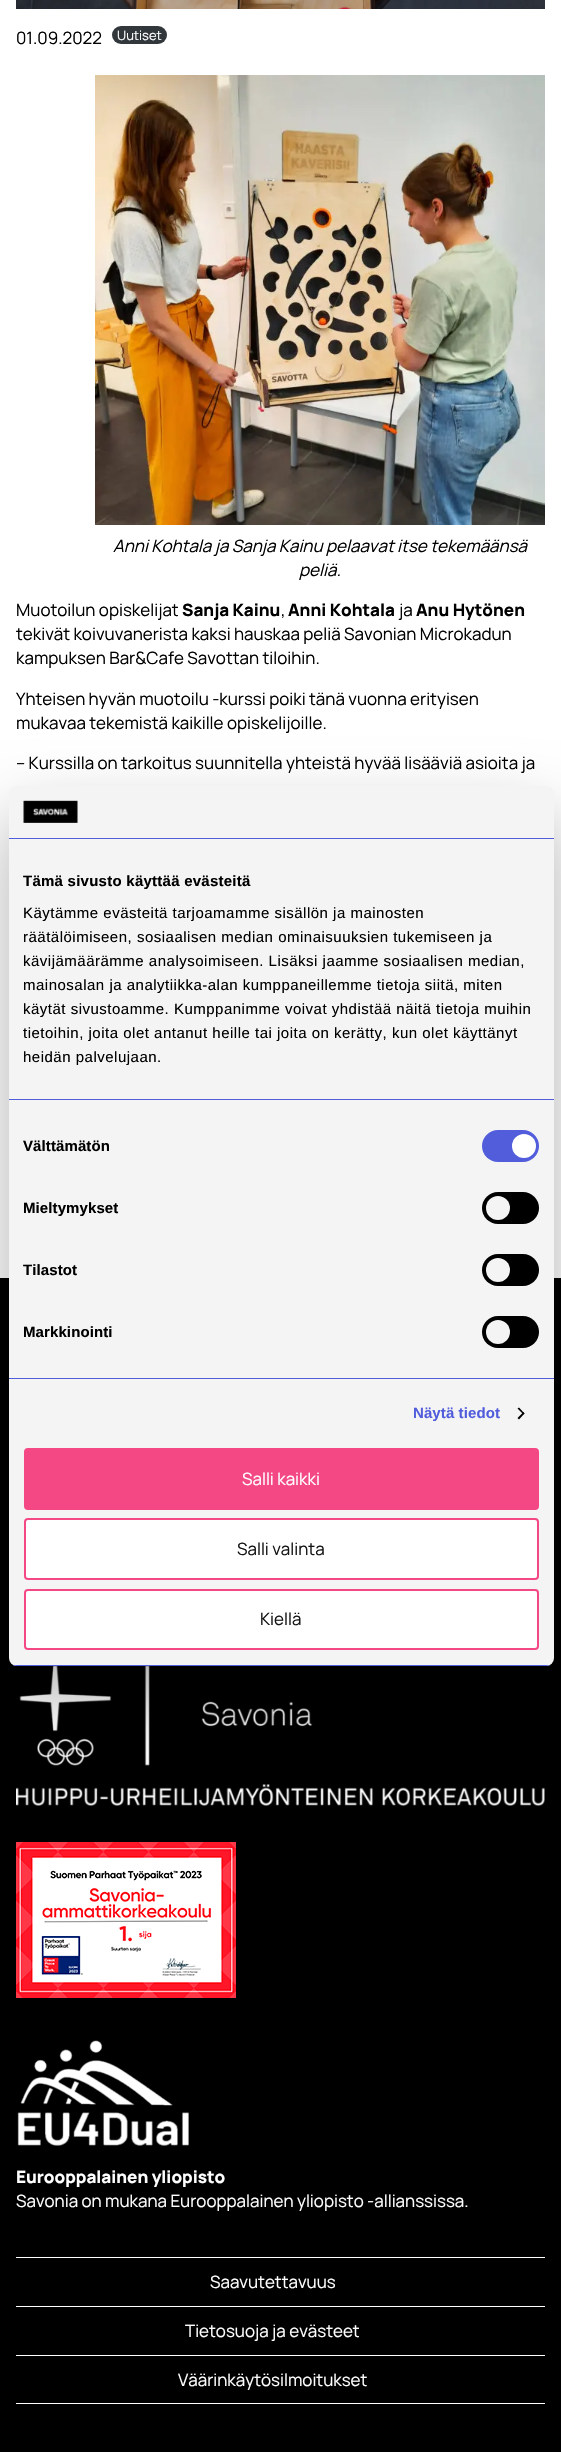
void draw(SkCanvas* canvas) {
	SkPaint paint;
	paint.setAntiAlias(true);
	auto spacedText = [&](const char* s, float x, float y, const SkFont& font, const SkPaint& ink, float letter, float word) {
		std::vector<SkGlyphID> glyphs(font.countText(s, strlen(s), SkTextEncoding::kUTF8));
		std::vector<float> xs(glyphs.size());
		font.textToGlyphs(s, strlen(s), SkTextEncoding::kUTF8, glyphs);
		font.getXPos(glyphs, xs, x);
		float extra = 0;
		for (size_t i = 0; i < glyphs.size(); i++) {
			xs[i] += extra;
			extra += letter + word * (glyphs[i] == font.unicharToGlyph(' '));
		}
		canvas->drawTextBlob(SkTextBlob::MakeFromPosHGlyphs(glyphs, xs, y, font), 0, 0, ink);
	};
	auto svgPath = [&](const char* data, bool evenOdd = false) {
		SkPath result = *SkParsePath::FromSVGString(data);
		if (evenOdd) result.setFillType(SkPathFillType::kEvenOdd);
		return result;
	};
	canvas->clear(0xffffffff);
	canvas->drawImageRect(SkImages::DeferredFromEncodedData(SkData::MakeFromFileName("img1.png")), SkRect::MakeXYWH(16, 0, 529, 9), SkSamplingOptions());
	SkFont f1(fontMgr->matchFamilyStyle("Manrope", SkFontStyle::Normal()), 17);
	f1.setSubpixel(true);
	paint.setColor(0xff000000);
	canvas->drawString("01.09.2022", 16, 44, f1, paint);
	paint.setColor(0xff32373c);
	canvas->drawRoundRect(SkRect::MakeXYWH(112, 26, 55, 18), 9, 9, paint);
	SkFont f2(fontMgr->matchFamilyStyle("Manrope", SkFontStyle::Normal()), 13);
	f2.setSubpixel(true);
	paint.setColor(0xffffffff);
	canvas->drawString("Uutiset", 117, 40, f2, paint);
	canvas->drawImageRect(SkImages::DeferredFromEncodedData(SkData::MakeFromFileName("img2.png")), SkRect::MakeXYWH(95, 75, 450, 450), SkSamplingOptions());
	SkFont f3(fontMgr->matchFamilyStyle("Manrope", SkFontStyle::Italic()), 17);
	f3.setSubpixel(true);
	paint.setColor(0xff000000);
	canvas->drawString("Anni Kohtala ja Sanja Kainu pelaavat itse tekemäänsä", 113, 552, f3, paint);
	canvas->drawString("peliä.", 299, 576, f3, paint);
	canvas->drawString("Muotoilun opiskelijat", 16, 616, f1, paint);
	SkFont f4(fontMgr->matchFamilyStyle("Manrope", SkFontStyle(800, SkFontStyle::kNormal_Width, SkFontStyle::kUpright_Slant)), 17);
	f4.setSubpixel(true);
	canvas->drawString("Sanja Kainu", 182, 616, f4, paint);
	canvas->drawString(",", 281, 616, f1, paint);
	canvas->drawString("Anni Kohtala", 288, 616, f4, paint);
	canvas->drawString("ja", 399, 616, f1, paint);
	canvas->drawString("Anu Hytönen", 416, 616, f4, paint);
	canvas->drawString("tekivät koivuvanerista kaksi hauskaa peliä Savonian Microkadun", 16, 640, f1, paint);
	canvas->drawString("kampuksen Bar&Cafe Savottan tiloihin.", 16, 664, f1, paint);
	canvas->drawString("Yhteisen hyvän muotoilu -kurssi poiki tänä vuonna erityisen", 16, 705, f1, paint);
	canvas->drawString("mukavaa tekemistä kaikille opiskelijoille.", 16, 729, f1, paint);
	canvas->drawString("– Kurssilla on tarkoitus suunnitella yhteistä hyvää lisääviä asioita ja", 16, 769, f1, paint);
	canvas->drawRect(SkRect::MakeXYWH(0, 1278, 561, 1174), paint);
	canvas->drawImageRect(SkImages::DeferredFromEncodedData(SkData::MakeFromFileName("img4.png")), SkRect::MakeXYWH(16, 1666, 529, 140), SkSamplingOptions());
	paint.setColor(0x4d000000);
	paint.setMaskFilter(SkMaskFilter::MakeBlur(kNormal_SkBlurStyle, 34));
	canvas->drawRoundRect(SkRect::MakeXYWH(9, 818, 545, 880), 8, 8, paint);
	paint.setMaskFilter(nullptr);
	paint.setColor(0xfff4f4f4);
	canvas->drawRoundRect(SkRect::MakeXYWH(9, 786, 545, 880), 8, 8, paint);
	paint.setColor(0xff525ddc);
	canvas->drawRect(SkRect::MakeXYWH(9, 838, 545, 1), paint);
	canvas->drawImageRect(SkImages::DeferredFromEncodedData(SkData::MakeFromFileName("img3.png")), SkRect::MakeXYWH(23, 800, 55, 23), SkSamplingOptions());
	canvas->drawRect(SkRect::MakeXYWH(9, 1099, 545, 1), paint);
	SkFont f5(fontMgr->matchFamilyStyle("Liberation Sans", SkFontStyle::Bold()), 15);
	f5.setSubpixel(true);
	paint.setColor(0xff000000);
	spacedText("Tämä sivusto käyttää evästeitä", 23, 886, f5, paint, 0.25, 0);
	SkFont f6(fontMgr->matchFamilyStyle("Liberation Sans", SkFontStyle::Normal()), 15);
	f6.setSubpixel(true);
	spacedText("Käytämme evästeitä tarjoamamme sisällön ja mainosten", 23, 918, f6, paint, 0.5, 0);
	spacedText("räätälöimiseen, sosiaalisen median ominaisuuksien tukemiseen ja", 23, 942, f6, paint, 0.5, 0);
	spacedText("kävijämäärämme analysoimiseen. Lisäksi jaamme sosiaalisen median,", 23, 966, f6, paint, 0.5, 0);
	spacedText("mainosalan ja analytiikka-alan kumppaneillemme tietoja siitä, miten", 23, 990, f6, paint, 0.5, 0);
	spacedText("käytät sivustoamme. Kumppanimme voivat yhdistää näitä tietoja muihin", 23, 1014, f6, paint, 0.5, 0);
	spacedText("tietoihin, joita olet antanut heille tai joita on kerätty, kun olet käyttänyt", 23, 1038, f6, paint, 0.5, 0);
	spacedText("heidän palvelujaan.", 23, 1062, f6, paint, 0.5, 0);
	paint.setColor(0xff525ddc);
	canvas->drawRect(SkRect::MakeXYWH(9, 1378, 545, 1), paint);
	paint.setColor(0xff000000);
	spacedText("Välttämätön", 23, 1151, f5, paint, 0.1, 0);
	paint.setColor(0xff525ddc);
	canvas->drawRoundRect(SkRect::MakeXYWH(482, 1130, 57, 32), 16, 16, paint);
	paint.setColor(0xffffffff);
	canvas->drawCircle(524, 1146, 12, paint);
	paint.setColor(0xff000000);
	spacedText("Mieltymykset", 23, 1213, f5, paint, 0.1, 0);
	canvas->drawRoundRect(SkRect::MakeXYWH(482, 1192, 57, 32), 16, 16, paint);
	paint.setColor(0xfff4f4f4);
	canvas->drawCircle(498, 1208, 12, paint);
	paint.setColor(0xff000000);
	spacedText("Tilastot", 23, 1275, f5, paint, 0.1, 0);
	canvas->drawRoundRect(SkRect::MakeXYWH(482, 1254, 57, 32), 16, 16, paint);
	paint.setColor(0xfff4f4f4);
	canvas->drawCircle(498, 1270, 12, paint);
	paint.setColor(0xff000000);
	spacedText("Markkinointi", 23, 1337, f5, paint, 0.1, 0);
	canvas->drawRoundRect(SkRect::MakeXYWH(482, 1316, 57, 32), 16, 16, paint);
	paint.setColor(0xfff4f4f4);
	canvas->drawCircle(498, 1332, 12, paint);
	paint.setColor(0xff525ddc);
	spacedText("Näytä tiedot", 413, 1418, f5, paint, 0.1, 0);
	paint.setColor(0xff000000);
	canvas->drawPath(svgPath("M519 1407.5L524.5 1413.5L523.5 1414.5L517.5 1408.5Z"), paint);
	canvas->drawPath(svgPath("M523.5 1412L524.5 1413.5L519 1419.5L517.5 1418Z"), paint);
	canvas->save();
	canvas->clipPath(svgPath("M17 786H546C550.5 786 554 789.5 554 794V1658C554 1662.5 550.5 1666 546 1666H17C12.5 1666 9 1662.5 9 1658V794C9 789.5 12.5 786 17 786Z"), true);
	paint.setColor(0xff525ddc);
	canvas->drawRect(SkRect::MakeXYWH(9, 1665, 545, 1), paint);
	canvas->restore();
	paint.setColor(0xfff44884);
	canvas->drawRoundRect(SkRect::MakeXYWH(25, 1449, 513, 60), 3, 3, paint);
	paint.setStroke(true);
	paint.setStrokeWidth(2);
	canvas->drawRoundRect(SkRect::MakeXYWH(25, 1449, 513, 60), 3, 3, paint);
	paint.setStroke(false);
	paint.setColor(0xffffffff);
	canvas->drawString("Salli kaikki", 242, 1485, f1, paint);
	canvas->drawRoundRect(SkRect::MakeXYWH(25, 1519, 513, 60), 3, 3, paint);
	paint.setStroke(true);
	paint.setColor(0xfff44884);
	canvas->drawRoundRect(SkRect::MakeXYWH(25, 1519, 513, 60), 3, 3, paint);
	paint.setStroke(false);
	paint.setColor(0xff141414);
	canvas->drawString("Salli valinta", 237, 1555, f1, paint);
	paint.setColor(0xffffffff);
	canvas->drawRoundRect(SkRect::MakeXYWH(25, 1590, 513, 59), 3, 3, paint);
	paint.setStroke(true);
	paint.setColor(0xfff44884);
	canvas->drawRoundRect(SkRect::MakeXYWH(25, 1590, 513, 59), 3, 3, paint);
	paint.setStroke(false);
	paint.setColor(0xff141414);
	canvas->drawString("Kiellä", 260, 1625, f1, paint);
	canvas->drawImageRect(SkImages::DeferredFromEncodedData(SkData::MakeFromFileName("img5.png")), SkRect::MakeXYWH(16, 1842, 220, 156), SkSamplingOptions());
	canvas->drawImageRect(SkImages::DeferredFromEncodedData(SkData::MakeFromFileName("img6.png")), SkRect::MakeXYWH(17, 2040, 172, 106), SkSamplingOptions());
	paint.setColor(0xffffffff);
	canvas->drawString("Eurooppalainen yliopisto", 16, 2183, f4, paint);
	canvas->drawString("Savonia on mukana Eurooppalainen yliopisto -allianssissa.", 16, 2207, f1, paint);
	canvas->drawRect(SkRect::MakeXYWH(16, 2257, 529, 1), paint);
	canvas->drawRect(SkRect::MakeXYWH(16, 2403, 529, 1), paint);
	canvas->drawRect(SkRect::MakeXYWH(16, 2306, 529, 1), paint);
	canvas->drawString("Saavutettavuus", 210, 2288, f1, paint);
	canvas->drawRect(SkRect::MakeXYWH(16, 2355, 529, 1), paint);
	canvas->drawString("Tietosuoja ja evästeet", 185, 2337, f1, paint);
	canvas->drawString("Väärinkäytösilmoitukset", 178, 2386, f1, paint);
}
